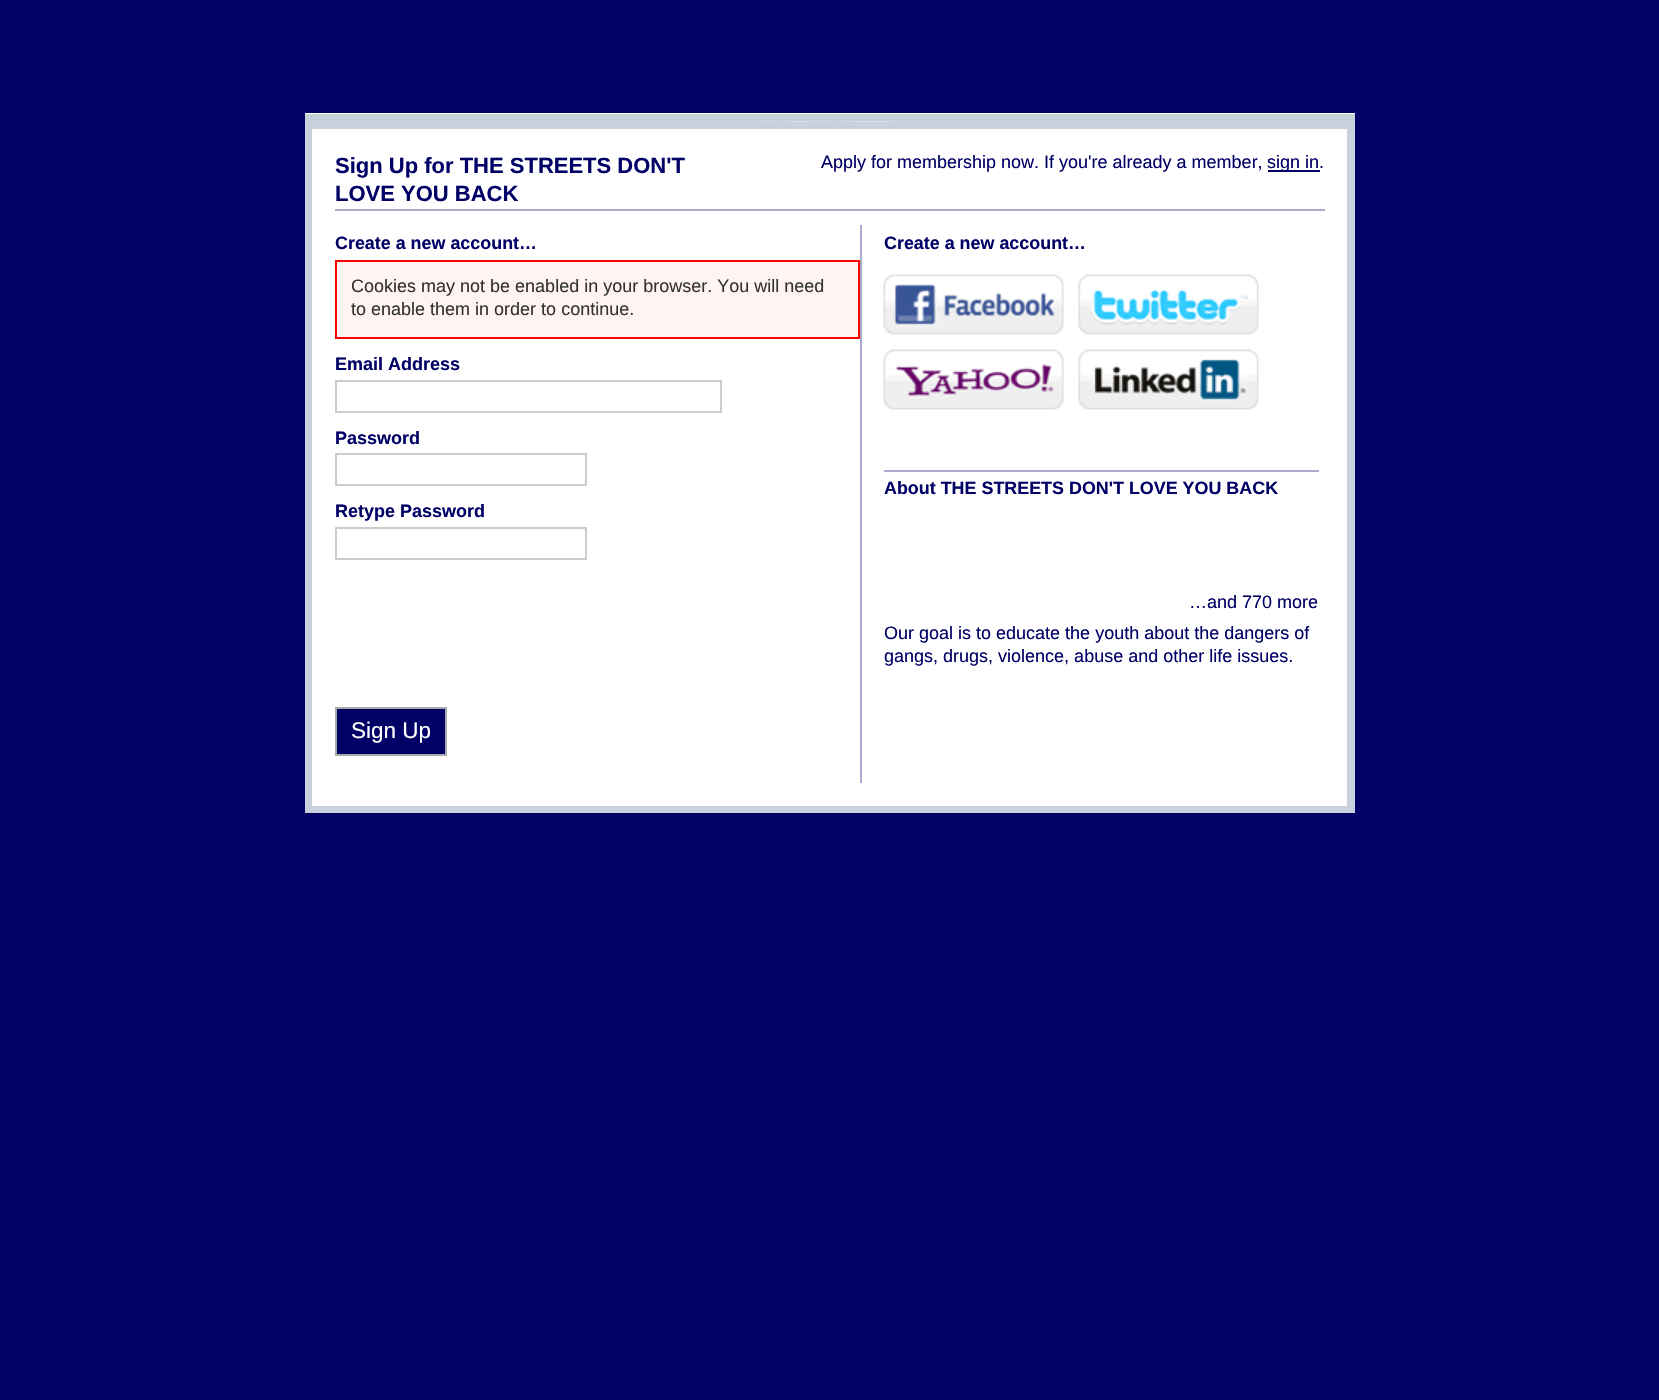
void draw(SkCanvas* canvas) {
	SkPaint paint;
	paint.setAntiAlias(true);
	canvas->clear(0xff000066);
	paint.setColor(0xffffffff);
	canvas->drawRect(SkRect::MakeXYWH(305, 113, 1050, 1), paint);
	paint.setColor(0xffc4d2db);
	canvas->drawRect(SkRect::MakeXYWH(305, 114, 1050, 8), paint);
	canvas->drawImageRect(SkImages::DeferredFromEncodedData(SkData::MakeFromFileName("img1.png")), SkRect::MakeXYWH(754, 121, 151, 1), SkSamplingOptions());
	paint.setStroke(true);
	paint.setStrokeWidth(8);
	paint.setColor(0xffc9d1de);
	canvas->drawRect(SkRect::MakeXYWH(309, 126, 1042, 683), paint);
	paint.setStroke(false);
	paint.setColor(0xffffffff);
	canvas->drawRect(SkRect::MakeXYWH(312, 129, 1035, 677), paint);
	paint.setColor(0xffaaaacc);
	canvas->drawRect(SkRect::MakeXYWH(335, 209, 990, 2), paint);
	SkFont f1(fontMgr->matchFamilyStyle("Liberation Sans", SkFontStyle::Bold()), 22);
	f1.setSubpixel(true);
	paint.setColor(0xff000066);
	canvas->drawString("Sign Up for THE STREETS DON'T", 335, 173, f1, paint);
	canvas->drawString("LOVE YOU BACK", 335, 201, f1, paint);
	SkFont f2(fontMgr->matchFamilyStyle("Liberation Sans", SkFontStyle::Normal()), 18);
	f2.setSubpixel(true);
	canvas->drawString("Apply for membership now. If you're already a member,", 821, 168, f2, paint);
	canvas->drawRect(SkRect::MakeXYWH(1268, 170, 52, 2), paint);
	canvas->drawString("sign in.", 1267, 168, f2, paint);
	paint.setColor(0xffaaaacc);
	canvas->drawRect(SkRect::MakeXYWH(860, 225, 2, 558), paint);
	SkFont f3(fontMgr->matchFamilyStyle("Liberation Sans", SkFontStyle::Bold()), 17.9);
	f3.setSubpixel(true);
	paint.setColor(0xff000066);
	canvas->drawString("Create a new account…", 335, 249, f3, paint);
	paint.setColor(0xfffff4f2);
	canvas->drawRect(SkRect::MakeXYWH(336, 261, 523, 77), paint);
	paint.setStroke(true);
	paint.setStrokeWidth(2);
	paint.setColor(0xffff0000);
	canvas->drawRect(SkRect::MakeXYWH(336, 261, 523, 77), paint);
	paint.setStroke(false);
	paint.setColor(0xff333333);
	canvas->drawString("Cookies may not be enabled in your browser. You will need", 351, 292, f2, paint);
	canvas->drawString("to enable them in order to continue.", 351, 315, f2, paint);
	SkFont f4(fontMgr->matchFamilyStyle("Liberation Sans", SkFontStyle::Bold()), 18);
	f4.setSubpixel(true);
	paint.setColor(0xff000066);
	canvas->drawString("Email Address", 335, 370, f4, paint);
	paint.setStroke(true);
	paint.setColor(0xffcccccc);
	canvas->drawRect(SkRect::MakeXYWH(336, 381, 385, 31), paint);
	paint.setStroke(false);
	paint.setColor(0xff000066);
	canvas->drawString("Password", 335, 444, f4, paint);
	paint.setStroke(true);
	paint.setColor(0xffcccccc);
	canvas->drawRect(SkRect::MakeXYWH(336, 454, 250, 31), paint);
	paint.setStroke(false);
	paint.setColor(0xff000066);
	canvas->drawString("Retype Password", 335, 517, f4, paint);
	paint.setStroke(true);
	paint.setColor(0xffcccccc);
	canvas->drawRect(SkRect::MakeXYWH(336, 528, 250, 31), paint);
	paint.setStroke(false);
	paint.setColor(0xff000066);
	canvas->drawRect(SkRect::MakeXYWH(336, 708, 110, 47), paint);
	paint.setStroke(true);
	paint.setColor(0xffaaaaaa);
	canvas->drawRect(SkRect::MakeXYWH(336, 708, 110, 47), paint);
	SkFont f5(fontMgr->matchFamilyStyle("Liberation Sans", SkFontStyle::Normal()), 22.5);
	f5.setSubpixel(true);
	paint.setStroke(false);
	paint.setColor(0xffffffff);
	canvas->drawString("Sign Up", 351, 738, f5, paint);
	paint.setColor(0xff000066);
	canvas->drawString("Create a new account…", 884, 249, f3, paint);
	paint.setColor(0xffaaaacc);
	canvas->drawRect(SkRect::MakeXYWH(884, 470, 435, 2), paint);
	canvas->drawImageRect(SkImages::DeferredFromEncodedData(SkData::MakeFromFileName("img2.png")), SkRect::MakeXYWH(883, 274, 181, 61), SkSamplingOptions());
	canvas->drawImageRect(SkImages::DeferredFromEncodedData(SkData::MakeFromFileName("img3.png")), SkRect::MakeXYWH(1078, 274, 181, 61), SkSamplingOptions());
	canvas->drawImageRect(SkImages::DeferredFromEncodedData(SkData::MakeFromFileName("img4.png")), SkRect::MakeXYWH(883, 349, 181, 61), SkSamplingOptions());
	canvas->drawImageRect(SkImages::DeferredFromEncodedData(SkData::MakeFromFileName("img5.png")), SkRect::MakeXYWH(1078, 349, 181, 61), SkSamplingOptions());
	paint.setColor(0xff000066);
	canvas->drawString("About THE STREETS DON'T LOVE YOU BACK", 884, 494, f3, paint);
	canvas->drawString("…and 770 more", 1189, 608, f2, paint);
	canvas->drawString("Our goal is to educate the youth about the dangers of", 884, 639, f2, paint);
	canvas->drawString("gangs, drugs, violence, abuse and other life issues.", 884, 662, f2, paint);
}
